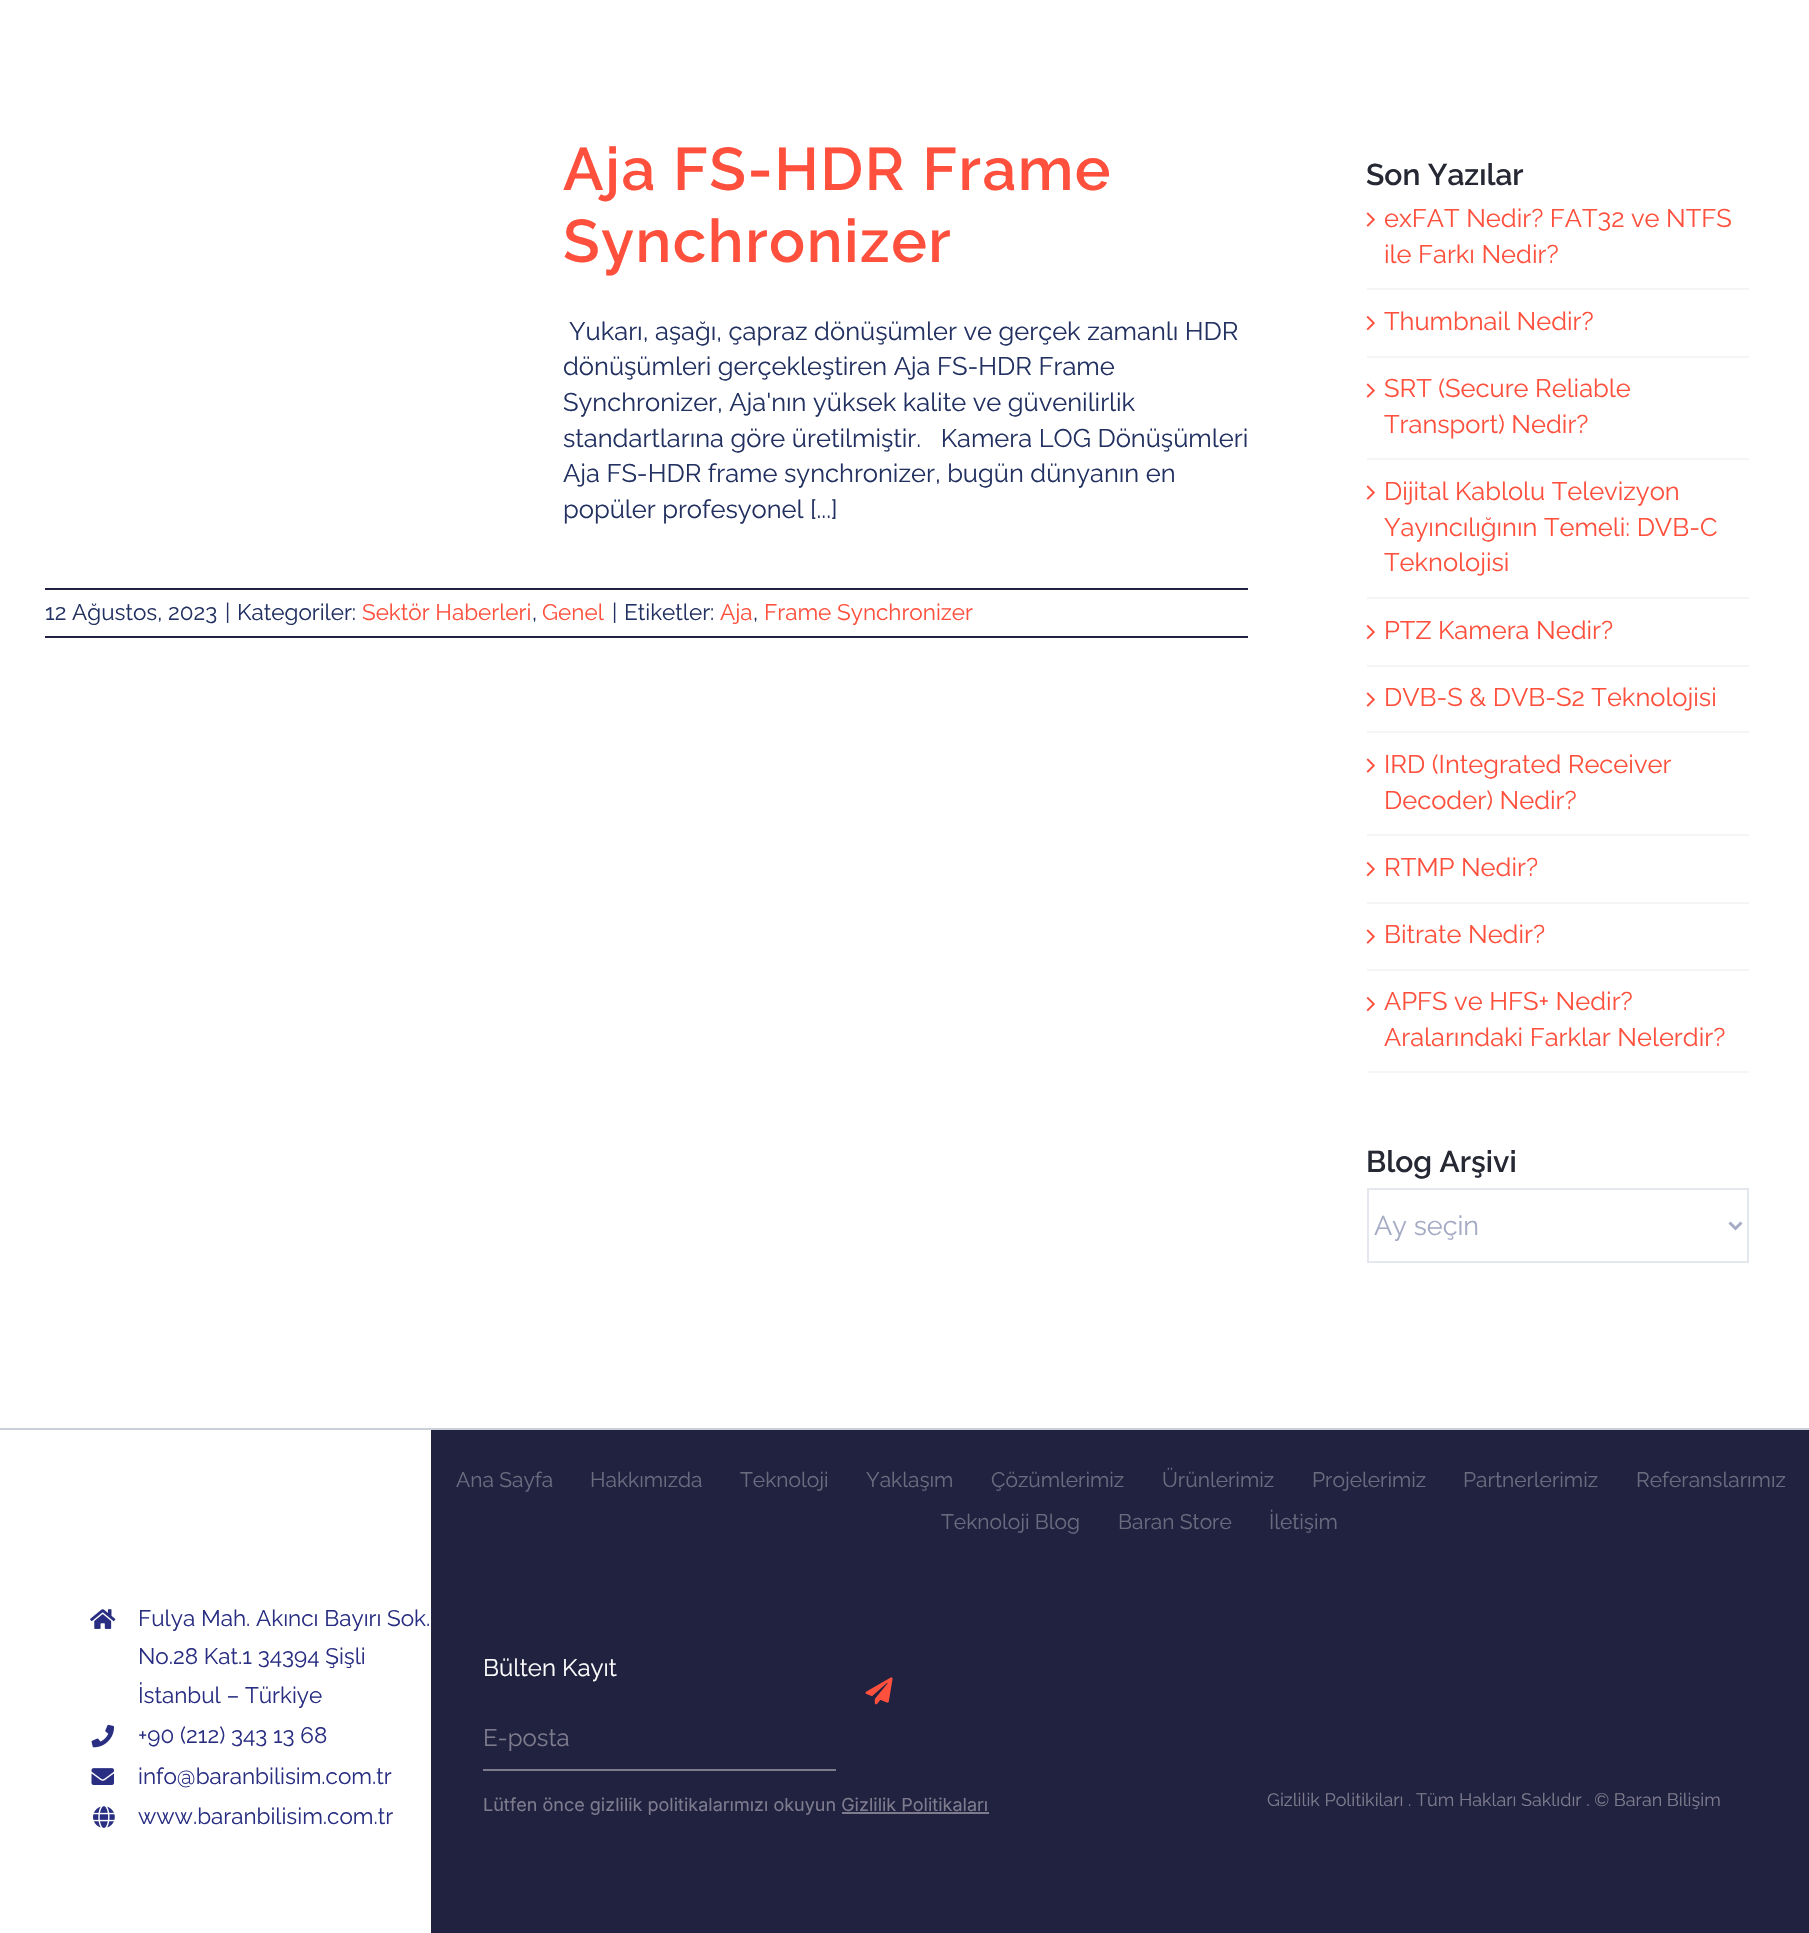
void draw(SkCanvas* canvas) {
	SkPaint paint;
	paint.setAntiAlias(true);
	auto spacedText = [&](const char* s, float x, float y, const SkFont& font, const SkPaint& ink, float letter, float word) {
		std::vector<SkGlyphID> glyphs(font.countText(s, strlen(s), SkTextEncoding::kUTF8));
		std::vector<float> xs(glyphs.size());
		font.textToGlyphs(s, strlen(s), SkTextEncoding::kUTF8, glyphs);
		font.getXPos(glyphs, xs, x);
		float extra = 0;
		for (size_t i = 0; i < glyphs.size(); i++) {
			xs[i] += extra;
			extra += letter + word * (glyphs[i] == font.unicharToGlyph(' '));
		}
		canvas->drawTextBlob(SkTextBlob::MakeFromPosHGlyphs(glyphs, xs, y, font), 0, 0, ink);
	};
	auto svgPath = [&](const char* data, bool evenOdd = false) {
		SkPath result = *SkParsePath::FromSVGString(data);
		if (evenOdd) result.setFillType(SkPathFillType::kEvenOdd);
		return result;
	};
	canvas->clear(0xffffffff);
	SkFont f1(fontMgr->matchFamilyStyle("Raleway", SkFontStyle(600, SkFontStyle::kNormal_Width, SkFontStyle::kUpright_Slant)), 60);
	f1.setSubpixel(true);
	paint.setColor(0xfffe503d);
	spacedText("Aja FS-HDR Frame", 563, 190, f1, paint, 1.5, 0);
	spacedText("Synchronizer", 563, 262, f1, paint, 1.5, 0);
	SkFont f2(fontMgr->matchFamilyStyle("Raleway", SkFontStyle::Normal()), 25.5);
	f2.setSubpixel(true);
	paint.setColor(0xff223161);
	canvas->drawString("Yukarı, aşağı, çapraz dönüşümler ve gerçek zamanlı HDR", 569, 340, f2, paint);
	canvas->drawString("dönüşümleri gerçekleştiren Aja FS-HDR Frame", 563, 375, f2, paint);
	canvas->drawString("Synchronizer, Aja'nın yüksek kalite ve güvenilirlik", 563, 411, f2, paint);
	canvas->drawString("standartlarına göre üretilmiştir.   Kamera LOG Dönüşümleri", 563, 447, f2, paint);
	canvas->drawString("Aja FS-HDR frame synchronizer, bugün dünyanın en", 563, 482, f2, paint);
	canvas->drawString("popüler profesyonel [...]", 563, 518, f2, paint);
	paint.setColor(0xff212240);
	canvas->drawRect(SkRect::MakeXYWH(45, 588, 1203, 2), paint);
	canvas->drawRect(SkRect::MakeXYWH(45, 636, 1203, 2), paint);
	SkFont f3(fontMgr->matchFamilyStyle("Raleway", SkFontStyle::Normal()), 22.5);
	f3.setSubpixel(true);
	paint.setColor(0xff223161);
	canvas->drawString("12 Ağustos, 2023", 45, 620, f3, paint);
	canvas->drawString("|", 225, 620, f3, paint);
	canvas->drawString("Kategoriler:", 237, 620, f3, paint);
	paint.setColor(0xfffe503d);
	canvas->drawString("Sektör Haberleri", 362, 620, f3, paint);
	paint.setColor(0xff223161);
	canvas->drawString(",", 532, 620, f3, paint);
	paint.setColor(0xfffe503d);
	canvas->drawString("Genel", 542, 620, f3, paint);
	paint.setColor(0xff223161);
	canvas->drawString("|", 612, 620, f3, paint);
	canvas->drawString("Etiketler:", 624, 620, f3, paint);
	paint.setColor(0xfffe503d);
	canvas->drawString("Aja", 720, 620, f3, paint);
	paint.setColor(0xff223161);
	canvas->drawString(",", 753, 620, f3, paint);
	paint.setColor(0xfffe503d);
	canvas->drawString("Frame Synchronizer", 764, 620, f3, paint);
	SkFont f4(fontMgr->matchFamilyStyle("Raleway", SkFontStyle(600, SkFontStyle::kNormal_Width, SkFontStyle::kUpright_Slant)), 30);
	f4.setSubpixel(true);
	paint.setColor(0xff262833);
	canvas->drawString("Son Yazılar", 1366, 185, f4, paint);
	paint.setColor(0xfff3f5f7);
	canvas->drawRect(SkRect::MakeXYWH(1367, 288, 382, 2), paint);
	canvas->drawImageRect(SkImages::DeferredFromEncodedData(SkData::MakeFromFileName("img1.png")), SkRect::MakeXYWH(1366, 212, 9, 15), SkSamplingOptions());
	paint.setColor(0xfffe503d);
	canvas->drawString("exFAT Nedir? FAT32 ve NTFS", 1384, 227, f2, paint);
	canvas->drawString("ile Farkı Nedir?", 1384, 263, f2, paint);
	paint.setColor(0xfff3f5f7);
	canvas->drawRect(SkRect::MakeXYWH(1367, 356, 382, 2), paint);
	canvas->drawImageRect(SkImages::DeferredFromEncodedData(SkData::MakeFromFileName("img2.png")), SkRect::MakeXYWH(1366, 316, 9, 15), SkSamplingOptions());
	paint.setColor(0xfffe503d);
	canvas->drawString("Thumbnail Nedir?", 1384, 330, f2, paint);
	paint.setColor(0xfff3f5f7);
	canvas->drawRect(SkRect::MakeXYWH(1367, 458, 382, 2), paint);
	canvas->drawImageRect(SkImages::DeferredFromEncodedData(SkData::MakeFromFileName("img1.png")), SkRect::MakeXYWH(1366, 383, 9, 15), SkSamplingOptions());
	paint.setColor(0xfffe503d);
	canvas->drawString("SRT (Secure Reliable", 1384, 397, f2, paint);
	canvas->drawString("Transport) Nedir?", 1384, 433, f2, paint);
	paint.setColor(0xfff3f5f7);
	canvas->drawRect(SkRect::MakeXYWH(1367, 597, 382, 2), paint);
	canvas->drawImageRect(SkImages::DeferredFromEncodedData(SkData::MakeFromFileName("img1.png")), SkRect::MakeXYWH(1366, 485, 9, 15), SkSamplingOptions());
	paint.setColor(0xfffe503d);
	canvas->drawString("Dijital Kablolu Televizyon", 1384, 500, f2, paint);
	canvas->drawString("Yayıncılığının Temeli: DVB-C", 1384, 536, f2, paint);
	canvas->drawString("Teknolojisi", 1384, 571, f2, paint);
	paint.setColor(0xfff3f5f7);
	canvas->drawRect(SkRect::MakeXYWH(1367, 665, 382, 2), paint);
	canvas->drawImageRect(SkImages::DeferredFromEncodedData(SkData::MakeFromFileName("img2.png")), SkRect::MakeXYWH(1366, 625, 9, 15), SkSamplingOptions());
	paint.setColor(0xfffe503d);
	canvas->drawString("PTZ Kamera Nedir?", 1384, 639, f2, paint);
	paint.setColor(0xfff3f5f7);
	canvas->drawRect(SkRect::MakeXYWH(1367, 731, 382, 2), paint);
	canvas->drawImageRect(SkImages::DeferredFromEncodedData(SkData::MakeFromFileName("img1.png")), SkRect::MakeXYWH(1366, 692, 9, 15), SkSamplingOptions());
	paint.setColor(0xfffe503d);
	canvas->drawString("DVB-S & DVB-S2 Teknolojisi", 1384, 706, f2, paint);
	paint.setColor(0xfff3f5f7);
	canvas->drawRect(SkRect::MakeXYWH(1367, 834, 382, 2), paint);
	canvas->drawImageRect(SkImages::DeferredFromEncodedData(SkData::MakeFromFileName("img1.png")), SkRect::MakeXYWH(1366, 758, 9, 15), SkSamplingOptions());
	paint.setColor(0xfffe503d);
	canvas->drawString("IRD (Integrated Receiver", 1384, 773, f2, paint);
	canvas->drawString("Decoder) Nedir?", 1384, 809, f2, paint);
	paint.setColor(0xfff3f5f7);
	canvas->drawRect(SkRect::MakeXYWH(1367, 902, 382, 2), paint);
	canvas->drawImageRect(SkImages::DeferredFromEncodedData(SkData::MakeFromFileName("img2.png")), SkRect::MakeXYWH(1366, 862, 9, 15), SkSamplingOptions());
	paint.setColor(0xfffe503d);
	canvas->drawString("RTMP Nedir?", 1384, 876, f2, paint);
	paint.setColor(0xfff3f5f7);
	canvas->drawRect(SkRect::MakeXYWH(1367, 969, 382, 2), paint);
	canvas->drawImageRect(SkImages::DeferredFromEncodedData(SkData::MakeFromFileName("img1.png")), SkRect::MakeXYWH(1366, 929, 9, 15), SkSamplingOptions());
	paint.setColor(0xfffe503d);
	canvas->drawString("Bitrate Nedir?", 1384, 943, f2, paint);
	paint.setColor(0xfff3f5f7);
	canvas->drawRect(SkRect::MakeXYWH(1367, 1071, 382, 2), paint);
	canvas->drawImageRect(SkImages::DeferredFromEncodedData(SkData::MakeFromFileName("img2.png")), SkRect::MakeXYWH(1366, 997, 9, 15), SkSamplingOptions());
	paint.setColor(0xfffe503d);
	canvas->drawString("APFS ve HFS+ Nedir?", 1384, 1010, f2, paint);
	canvas->drawString("Aralarındaki Farklar Nelerdir?", 1384, 1046, f2, paint);
	paint.setColor(0xff262833);
	canvas->drawString("Blog Arşivi", 1366, 1172, f4, paint);
	paint.setStroke(true);
	paint.setStrokeWidth(2);
	paint.setColor(0xffe4e7ee);
	canvas->drawRect(SkRect::MakeXYWH(1368, 1189, 380, 73), paint);
	paint.setStrokeWidth(3);
	paint.setColor(0xffa5abc5);
	canvas->drawPath(svgPath("M1729.5 1222.5L1735.5 1228.5L1741.5 1222.5"), paint);
	SkFont f5(fontMgr->matchFamilyStyle("Raleway", SkFontStyle::Normal()), 27);
	f5.setSubpixel(true);
	paint.setStroke(false);
	canvas->drawString("Ay seçin", 1374, 1235, f5, paint);
	paint.setColor(0xffc9d0d8);
	canvas->drawRect(SkRect::MakeXYWH(0, 1428, 1809, 2), paint);
	canvas->drawImageRect(SkImages::DeferredFromEncodedData(SkData::MakeFromFileName("img3.png")), SkRect::MakeXYWH(90, 1609, 26, 20), SkSamplingOptions());
	paint.setColor(0xff292e82);
	canvas->drawString("Fulya Mah. Akıncı Bayırı Sok.", 138, 1626, f3, paint);
	canvas->drawString("No.28 Kat.1 34394 Şişli", 138, 1664, f3, paint);
	canvas->drawString("İstanbul – Türkiye", 138, 1703, f3, paint);
	canvas->drawImageRect(SkImages::DeferredFromEncodedData(SkData::MakeFromFileName("img4.png")), SkRect::MakeXYWH(91, 1724, 23, 24), SkSamplingOptions());
	canvas->drawString("+90 (212) 343 13 68", 138, 1743, f3, paint);
	canvas->drawImageRect(SkImages::DeferredFromEncodedData(SkData::MakeFromFileName("img5.png")), SkRect::MakeXYWH(91, 1768, 23, 17), SkSamplingOptions());
	canvas->drawString("info@baranbilisim.com.tr", 138, 1784, f3, paint);
	canvas->drawImageRect(SkImages::DeferredFromEncodedData(SkData::MakeFromFileName("img6.png")), SkRect::MakeXYWH(93, 1806, 22, 22), SkSamplingOptions());
	canvas->drawString("www.baranbilisim.com.tr", 138, 1824, f3, paint);
	paint.setColor(0xff212240);
	canvas->drawRect(SkRect::MakeXYWH(431, 1430, 1378, 503), paint);
	SkFont f6(fontMgr->matchFamilyStyle("Raleway", SkFontStyle::Normal()), 21);
	f6.setSubpixel(true);
	paint.setColor(0xff6a6b7f);
	canvas->drawString("Ana Sayfa", 456, 1487, f6, paint);
	canvas->drawString("Hakkımızda", 590, 1487, f6, paint);
	canvas->drawString("Teknoloji", 740, 1487, f6, paint);
	canvas->drawString("Yaklaşım", 866, 1487, f6, paint);
	canvas->drawString("Çözümlerimiz", 991, 1487, f6, paint);
	canvas->drawString("Ürünlerimiz", 1162, 1487, f6, paint);
	canvas->drawString("Projelerimiz", 1312, 1487, f6, paint);
	canvas->drawString("Partnerlerimiz", 1463, 1487, f6, paint);
	canvas->drawString("Referanslarımız", 1636, 1487, f6, paint);
	canvas->drawString("Teknoloji Blog", 941, 1529, f6, paint);
	canvas->drawString("Baran Store", 1118, 1529, f6, paint);
	canvas->drawString("İletişim", 1269, 1529, f6, paint);
	SkFont f7(fontMgr->matchFamilyStyle("Raleway", SkFontStyle::Normal()), 24);
	f7.setSubpixel(true);
	paint.setColor(0xffffffff);
	canvas->drawString("Bülten Kayıt", 483, 1676, f7, paint);
	paint.setColor(0xff7d7b8d);
	canvas->drawRect(SkRect::MakeXYWH(483, 1769, 353, 2), paint);
	canvas->drawString("E-posta", 483, 1746, f7, paint);
	canvas->drawImageRect(SkImages::DeferredFromEncodedData(SkData::MakeFromFileName("img7.png")), SkRect::MakeXYWH(865, 1677, 28, 28), SkSamplingOptions());
	SkFont f8(fontMgr->matchFamilyStyle("Inter", SkFontStyle::Normal()), 18);
	f8.setSubpixel(true);
	canvas->drawString("Lütfen önce gizlilik politikalarımızı okuyun Gizlilik Politikaları", 483, 1811, f8, paint);
	canvas->drawRect(SkRect::MakeXYWH(842, 1812, 147, 2), paint);
	SkFont f9(fontMgr->matchFamilyStyle("Raleway", SkFontStyle::Normal()), 18);
	f9.setSubpixel(true);
	canvas->drawString("Gizlilik Politikiları . Tüm Hakları Saklıdır . © Baran Bilişim", 1267, 1806, f9, paint);
}
